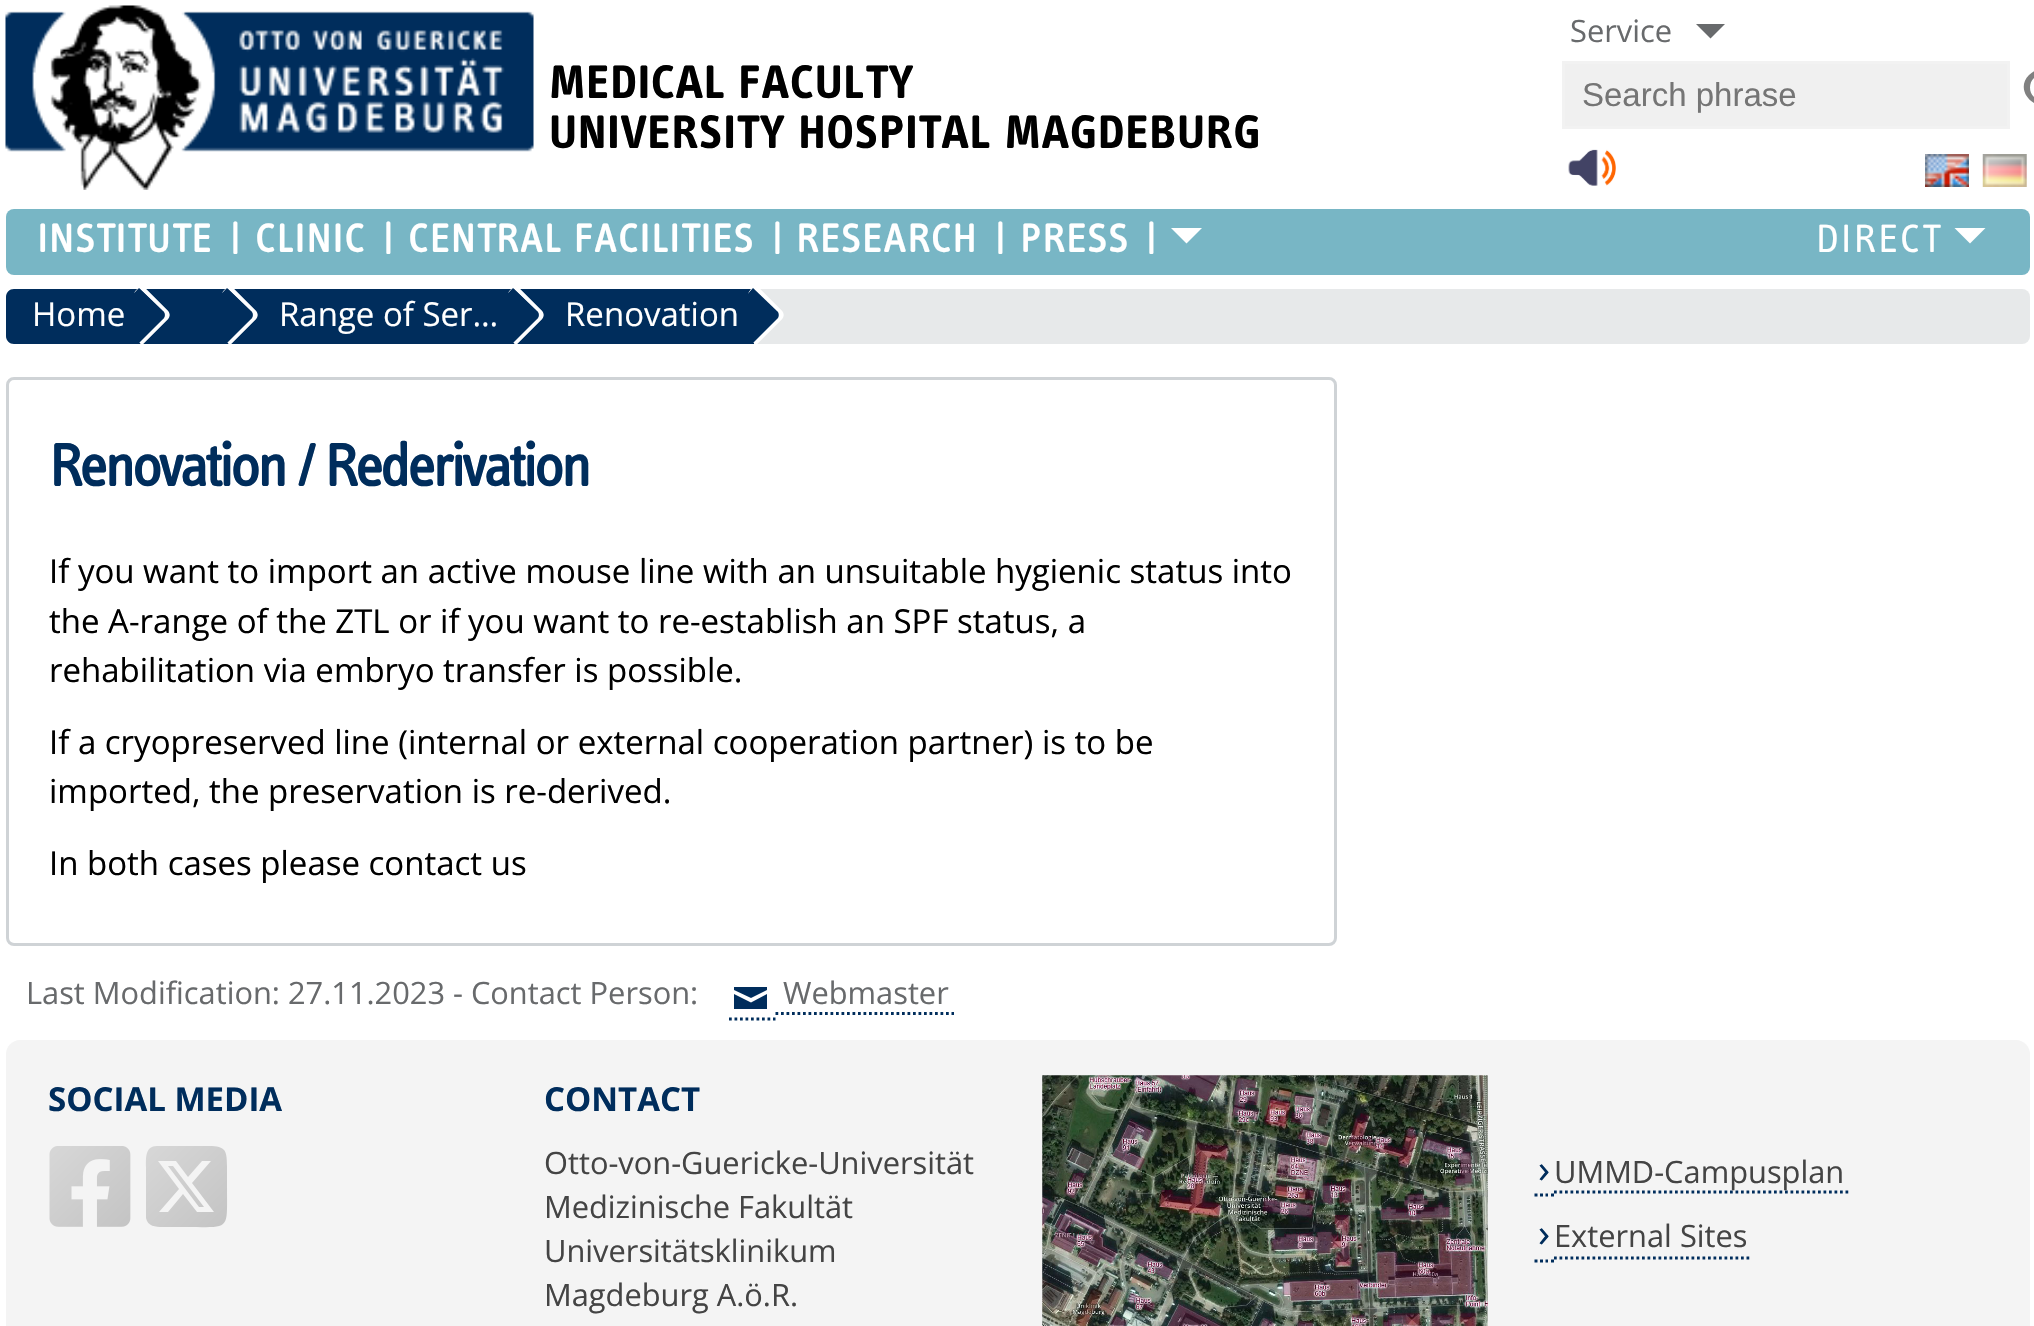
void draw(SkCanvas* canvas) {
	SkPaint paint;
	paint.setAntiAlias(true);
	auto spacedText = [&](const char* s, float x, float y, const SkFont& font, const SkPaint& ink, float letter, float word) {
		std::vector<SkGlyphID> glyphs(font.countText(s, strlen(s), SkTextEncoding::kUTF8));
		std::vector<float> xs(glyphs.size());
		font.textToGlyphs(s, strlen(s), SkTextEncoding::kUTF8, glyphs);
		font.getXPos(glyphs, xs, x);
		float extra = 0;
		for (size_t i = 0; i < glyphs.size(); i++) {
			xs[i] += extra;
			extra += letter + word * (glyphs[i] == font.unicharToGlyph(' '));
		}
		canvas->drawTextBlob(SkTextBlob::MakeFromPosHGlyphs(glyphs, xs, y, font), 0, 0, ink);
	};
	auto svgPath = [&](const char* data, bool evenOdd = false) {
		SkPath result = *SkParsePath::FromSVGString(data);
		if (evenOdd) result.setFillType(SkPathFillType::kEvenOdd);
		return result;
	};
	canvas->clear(0xffffffff);
	canvas->drawImageRect(SkImages::DeferredFromEncodedData(SkData::MakeFromFileName("img1.png")), SkRect::MakeXYWH(5, 5, 529, 185), SkSamplingOptions());
	SkFont f1(fontMgr->matchFamilyStyle("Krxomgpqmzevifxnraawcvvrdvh", SkFontStyle::Bold()), 48.4);
	f1.setSubpixel(true);
	paint.setColor(0xff000000);
	spacedText("MEDICAL FACULTY", 549, 98, f1, paint, 0.9, 0);
	spacedText("UNIVERSITY HOSPITAL MAGDEBURG", 549, 148, f1, paint, 0.9, 0);
	SkFont f2(fontMgr->matchFamilyStyle("Open Sans", SkFontStyle::Normal()), 30.8);
	f2.setSubpixel(true);
	paint.setColor(0xff686a6c);
	canvas->drawString("Service", 1570, 42, f2, paint);
	canvas->drawPath(svgPath("M1696 24L1710.5 38.5L1725 24Z"), paint);
	paint.setColor(0xfff0f0f0);
	canvas->drawRect(SkRect::MakeXYWH(1563.5, 62.5, 445, 65), paint);
	paint.setStroke(true);
	paint.setStrokeWidth(3);
	paint.setColor(0xfff2f2f2);
	canvas->drawRect(SkRect::MakeXYWH(1563.5, 62.5, 445, 65), paint);
	SkFont f3(fontMgr->matchFamilyStyle("Liberation Sans", SkFontStyle::Normal()), 33);
	f3.setSubpixel(true);
	paint.setStroke(false);
	paint.setColor(0xff757575);
	canvas->drawString("Search phrase", 1582, 106, f3, paint);
	paint.setColor(0xff808080);
	canvas->drawPath(svgPath("M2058 100H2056L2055 99C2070 82 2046 58 2029 75C2013 91 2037 115 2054 101V104L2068 117L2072 113ZM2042 100C2026 100 2026 75 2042 75C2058 75 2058 100 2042 100Z"), paint);
	canvas->drawImageRect(SkImages::DeferredFromEncodedData(SkData::MakeFromFileName("img2.png")), SkRect::MakeXYWH(1568, 149, 48, 37), SkSamplingOptions());
	canvas->drawImageRect(SkImages::DeferredFromEncodedData(SkData::MakeFromFileName("img3.png")), SkRect::MakeXYWH(1925, 154, 44, 33), SkSamplingOptions());
	canvas->drawImageRect(SkImages::DeferredFromEncodedData(SkData::MakeFromFileName("img4.png")), SkRect::MakeXYWH(1982, 154, 45, 33), SkSamplingOptions());
	paint.setColor(0xff78b6c5);
	canvas->drawRoundRect(SkRect::MakeXYWH(6, 209, 2024, 66), 8, 8, paint);
	SkFont f4(fontMgr->matchFamilyStyle("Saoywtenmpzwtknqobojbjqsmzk", SkFontStyle::Bold()), 40.75);
	f4.setSubpixel(true);
	paint.setColor(0xffffffff);
	spacedText("INSTITUTE", 37, 252, f4, paint, 1.5, 0);
	spacedText("|", 230, 252, f4, paint, 1.5, 0);
	spacedText("CLINIC", 255, 252, f4, paint, 1.5, 0);
	spacedText("|", 383, 252, f4, paint, 1.5, 0);
	spacedText("CENTRAL FACILITIES", 408, 252, f4, paint, 1.5, 0);
	spacedText("|", 772, 252, f4, paint, 1.5, 0);
	spacedText("RESEARCH", 796, 252, f4, paint, 1.5, 0);
	spacedText("|", 995, 252, f4, paint, 1.5, 0);
	spacedText("PRESS", 1020, 252, f4, paint, 1.5, 0);
	spacedText("|", 1146, 252, f4, paint, 2.25, 0);
	canvas->drawPath(svgPath("M1171 228L1186.5 243.5L1202 228Z"), paint);
	SkFont f5(fontMgr->matchFamilyStyle("Saoywtenmpzwtknqobojbjqsmzk", SkFontStyle::Normal()), 40.75);
	f5.setSubpixel(true);
	spacedText("DIRECT", 1816, 252, f5, paint, 2.25, 0);
	canvas->drawPath(svgPath("M1954.5 228L1970 243.5L1985.5 228Z"), paint);
	paint.setColor(0xffe7e9ea);
	canvas->drawRoundRect(SkRect::MakeXYWH(6, 289, 2024, 55), 8, 8, paint);
	paint.setColor(0xff002d5c);
	canvas->drawRect(SkRect::MakeXYWH(140, 289, 614, 55), paint);
	paint.setColor(0xe6ffffff);
	canvas->drawPath(svgPath("M230 285C227 287 224 290 222 293L227 288L252 312C253 314 253 316 252 318L227 342L230 345L256 319C258 317 258 313 256 311Z"), paint);
	canvas->drawPath(svgPath("M230 285C227 287 224 290 222 293L227 288L252 312C253 314 253 316 252 318L227 342L230 345L256 319C258 317 258 313 256 311Z"), paint);
	paint.setColor(0xff002d5c);
	canvas->drawPath(svgPath("M227 288L252 312C253 314 253 316 252 318L227 343C212 327 212 303 227 288Z"), paint);
	canvas->drawPath(svgPath("M14 289H140V344H14C9.5 344 6 340.5 6 336V297C6 292.5 9.5 289 14 289Z"), paint);
	SkFont f6(fontMgr->matchFamilyStyle("Open Sans", SkFontStyle::Normal()), 33);
	f6.setSubpixel(true);
	paint.setColor(0xffffffff);
	canvas->drawString("Home", 32, 326, f6, paint);
	paint.setColor(0xe6ffffff);
	canvas->drawPath(svgPath("M142 285C139 287 136 290 134 293L139 288L164 312C165 314 165 316 164 318L139 342L142 345L168 319C170 317 170 313 168 311Z"), paint);
	canvas->drawPath(svgPath("M142 285C139 287 136 290 134 293L139 288L164 312C165 314 165 316 164 318L139 342L142 345L168 319C170 317 170 313 168 311Z"), paint);
	paint.setColor(0xff002d5c);
	canvas->drawPath(svgPath("M139 288L164 312C165 314 165 316 164 318L139 343C124 327 124 303 139 288Z"), paint);
	paint.setColor(0xffffffff);
	canvas->drawString("Range of Ser…", 279, 326, f6, paint);
	paint.setColor(0xe6ffffff);
	canvas->drawPath(svgPath("M516 285C513 287 510 290 508 293L513 288L538 312C539 314 539 316 538 318L513 342L516 345L542 319C544 317 544 313 542 311Z"), paint);
	canvas->drawPath(svgPath("M516 285C513 287 510 290 508 293L513 288L538 312C539 314 539 316 538 318L513 342L516 345L542 319C544 317 544 313 542 311Z"), paint);
	paint.setColor(0xff002d5c);
	canvas->drawPath(svgPath("M513 288L538 312C539 314 539 316 538 318L513 343C498 327 498 303 513 288Z"), paint);
	paint.setColor(0xffffffff);
	canvas->drawString("Renovation", 565, 326, f6, paint);
	paint.setColor(0xe6ffffff);
	canvas->drawPath(svgPath("M756 285C752 287 750 290 748 294L753 288L778 312C779 314 779 316 778 318L753 342L756 345L782 319C784 317 784 313 782 311Z"), paint);
	canvas->drawPath(svgPath("M756 285C752 287 750 290 748 294L753 288L778 312C779 314 779 316 778 318L753 342L756 345L782 319C784 317 784 313 782 311Z"), paint);
	paint.setColor(0xff002d5c);
	canvas->drawPath(svgPath("M753 288L778 312C779 314 779 316 778 318L753 343C738 327 738 303 753 288Z"), paint);
	paint.setStroke(true);
	paint.setColor(0xffcfd3d6);
	canvas->drawRoundRect(SkRect::MakeXYWH(7.5, 378.5, 1328, 566), 6.5, 6.5, paint);
	SkFont f7(fontMgr->matchFamilyStyle("Saoywtenmpzwtknqobojbjqsmzk", SkFontStyle::Bold()), 61.5);
	f7.setSubpixel(true);
	paint.setStroke(false);
	paint.setColor(0xff002d5c);
	spacedText("Renovation / Rederivation", 49, 486, f7, paint, -3.4, 0);
	paint.setColor(0xff000000);
	canvas->drawString("If you want to import an active mouse line with an unsuitable hygienic status into", 49, 583, f6, paint);
	canvas->drawString("the A-range of the ZTL or if you want to re-establish an SPF status, a", 49, 633, f6, paint);
	canvas->drawString("rehabilitation via embryo transfer is possible.", 49, 682, f6, paint);
	canvas->drawString("If a cryopreserved line (internal or external cooperation partner) is to be", 49, 754, f6, paint);
	canvas->drawString("imported, the preservation is re-derived.", 49, 803, f6, paint);
	canvas->drawString("In both cases please contact us", 49, 875, f6, paint);
	paint.setColor(0xff686a6c);
	canvas->drawString("Last Modification: 27.11.2023 - Contact Person:", 26, 1004, f2, paint);
	paint.setStroke(true);
	paint.setStrokeWidth(2.8);
	paint.setColor(0xff002d5c);
	paint.setPathEffect(SkDashPathEffect::Make({{2.75f, 2.75f}}, 0));
	canvas->drawPath(svgPath("M729 1019H775.5"), paint);
	paint.setPathEffect(nullptr);
	paint.setPathEffect(SkDashPathEffect::Make({{2.75f, 2.75f}}, 0));
	canvas->drawPath(svgPath("M775.5 1013.5H954"), paint);
	paint.setPathEffect(nullptr);
	paint.setStroke(false);
	canvas->drawPath(svgPath("M734 1009V994L751 1002.5L767 994V1009ZM734 990V987H767V990L751 998Z"), paint);
	paint.setColor(0xff686a6c);
	canvas->drawString("Webmaster", 783, 1004, f2, paint);
	paint.setColor(0xfff4f4f4);
	canvas->drawPath(svgPath("M20 1040H2016C2023.5 1040 2030 1046.5 2030 1054V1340H6V1054C6 1046.5 12.5 1040 20 1040Z"), paint);
	SkFont f8(fontMgr->matchFamilyStyle("Open Sans", SkFontStyle::Bold()), 33);
	f8.setSubpixel(true);
	paint.setColor(0xff002d5c);
	canvas->drawString("SOCIAL MEDIA", 48, 1111, f8, paint);
	canvas->drawImageRect(SkImages::DeferredFromEncodedData(SkData::MakeFromFileName("img5.png")), SkRect::MakeXYWH(49, 1146, 82, 81), SkSamplingOptions());
	{
		const SkColor colors[] = {0xffd8d8d8, 0xffc3c3c3};
		const float stops[] = {0, 1};
		const SkPoint ends[] = {{143, 1144}, {229, 1231}};
		paint.setShader(SkGradientShader::MakeLinear(ends, colors, stops, 2, SkTileMode::kClamp));
		paint.setAlpha(255);
	}
	canvas->drawPath(svgPath("M157 1146C145 1146 146 1158 146 1167V1218C148 1228 159 1227 167 1227H186C231 1227 227 1232 227 1186V1167C227 1148 225 1146 205 1146ZM211 1161L192 1183L214 1212H197L183 1194L168 1212H159L179 1189L158 1161H176L188 1177L202 1161ZM204 1207L173 1166H168L199 1207Z"), paint);
	paint.setShader(nullptr);
	paint.setColor(0xff002d5c);
	canvas->drawString("CONTACT", 544, 1111, f8, paint);
	paint.setColor(0xff444444);
	canvas->drawString("Otto-von-Guericke-Universität", 544, 1174, f2, paint);
	canvas->drawString("Medizinische Fakultät", 544, 1218, f2, paint);
	canvas->drawString("Universitätsklinikum", 544, 1262, f2, paint);
	canvas->drawString("Magdeburg A.ö.R.", 544, 1306, f2, paint);
	canvas->drawImageRect(SkImages::DeferredFromEncodedData(SkData::MakeFromFileName("img6.png")), SkRect::MakeXYWH(1042, 1075, 446, 251), SkSamplingOptions());
	SkFont f9(fontMgr->matchFamilyStyle("Open Sans", SkFontStyle::Normal()), 40);
	f9.setSubpixel(true);
	paint.setColor(0xff002d5c);
	canvas->drawString("›", 1538, 1183, f9, paint);
	paint.setStroke(true);
	paint.setPathEffect(SkDashPathEffect::Make({{2.75f, 2.75f}}, 0));
	canvas->drawPath(svgPath("M1554 1192H1851"), paint);
	paint.setPathEffect(nullptr);
	paint.setStroke(false);
	paint.setColor(0xff444444);
	canvas->drawString("UMMD-Campusplan", 1554, 1183, f2, paint);
	paint.setStroke(true);
	paint.setColor(0xff002d5c);
	canvas->drawPath(svgPath("M1534.5 1195H1537.5M1540 1195H1543M1545.5 1195H1548M1551 1195H1554"), paint);
	paint.setStroke(false);
	canvas->drawString("›", 1538, 1247, f9, paint);
	paint.setStroke(true);
	canvas->drawPath(svgPath("M1534.5 1261H1537.5M1540 1261H1543M1545.5 1261H1548M1551 1261H1554"), paint);
	paint.setStroke(false);
	paint.setColor(0xff444444);
	canvas->drawString("External Sites", 1554, 1247, f2, paint);
	paint.setStroke(true);
	paint.setColor(0xff002d5c);
	paint.setPathEffect(SkDashPathEffect::Make({{2.75f, 2.75f}}, 0));
	canvas->drawPath(svgPath("M1554 1258H1752"), paint);
	paint.setPathEffect(nullptr);
}
